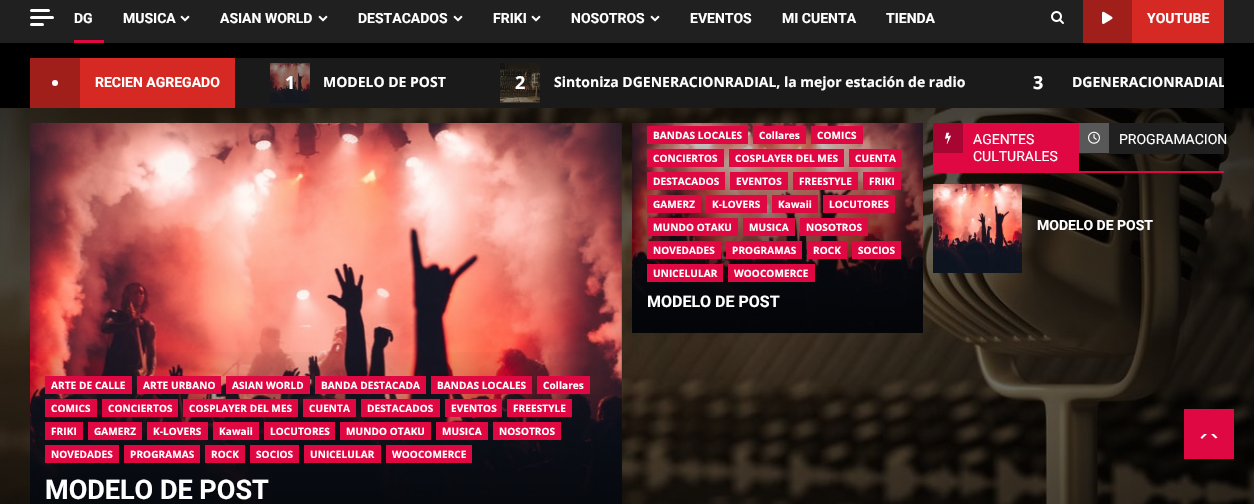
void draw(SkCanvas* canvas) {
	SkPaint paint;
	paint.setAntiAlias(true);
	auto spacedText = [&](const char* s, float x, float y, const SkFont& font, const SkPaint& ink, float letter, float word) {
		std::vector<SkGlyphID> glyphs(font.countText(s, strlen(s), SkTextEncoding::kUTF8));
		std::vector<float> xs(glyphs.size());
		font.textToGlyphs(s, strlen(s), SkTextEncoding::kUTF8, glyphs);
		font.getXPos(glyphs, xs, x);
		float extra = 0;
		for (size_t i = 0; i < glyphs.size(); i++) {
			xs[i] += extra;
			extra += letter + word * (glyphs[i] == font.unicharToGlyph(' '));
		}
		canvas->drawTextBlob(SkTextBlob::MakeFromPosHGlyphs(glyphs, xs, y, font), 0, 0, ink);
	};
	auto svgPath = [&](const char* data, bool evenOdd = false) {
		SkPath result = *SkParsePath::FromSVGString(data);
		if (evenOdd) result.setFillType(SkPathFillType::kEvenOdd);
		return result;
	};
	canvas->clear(0xff000000);
	paint.setColor(0xff202020);
	canvas->drawRect(SkRect::MakeXYWH(0, 0, 1254, 43), paint);
	paint.setColor(0xffffffff);
	canvas->drawRoundRect(SkRect::MakeXYWH(30, 9, 20, 3), 1.5, 1.5, paint);
	canvas->drawRoundRect(SkRect::MakeXYWH(30, 16, 24, 3), 1.5, 1.5, paint);
	canvas->drawRoundRect(SkRect::MakeXYWH(30, 23, 14, 3), 1.5, 1.5, paint);
	SkFont f1(fontMgr->matchFamilyStyle("Roboto", SkFontStyle::Bold()), 14);
	f1.setSubpixel(true);
	canvas->drawString("DG", 74, 23, f1, paint);
	paint.setColor(0xffe00842);
	canvas->drawRect(SkRect::MakeXYWH(74, 40, 30, 3), paint);
	paint.setColor(0xffffffff);
	canvas->drawString("MUSICA", 123, 23, f1, paint);
	canvas->drawImageRect(SkImages::DeferredFromEncodedData(SkData::MakeFromFileName("img1.png")), SkRect::MakeXYWH(180, 15, 10, 7), SkSamplingOptions());
	canvas->drawString("ASIAN WORLD", 220, 23, f1, paint);
	canvas->drawImageRect(SkImages::DeferredFromEncodedData(SkData::MakeFromFileName("img1.png")), SkRect::MakeXYWH(318, 15, 10, 7), SkSamplingOptions());
	canvas->drawString("DESTACADOS", 358, 23, f1, paint);
	canvas->drawImageRect(SkImages::DeferredFromEncodedData(SkData::MakeFromFileName("img1.png")), SkRect::MakeXYWH(453, 15, 10, 7), SkSamplingOptions());
	canvas->drawString("FRIKI", 493, 23, f1, paint);
	canvas->drawImageRect(SkImages::DeferredFromEncodedData(SkData::MakeFromFileName("img1.png")), SkRect::MakeXYWH(531, 15, 10, 7), SkSamplingOptions());
	canvas->drawString("NOSOTROS", 571, 23, f1, paint);
	canvas->drawImageRect(SkImages::DeferredFromEncodedData(SkData::MakeFromFileName("img1.png")), SkRect::MakeXYWH(650, 15, 10, 7), SkSamplingOptions());
	canvas->drawString("EVENTOS", 690, 23, f1, paint);
	canvas->drawString("MI CUENTA", 782, 23, f1, paint);
	canvas->drawString("TIENDA", 886, 23, f1, paint);
	canvas->drawImageRect(SkImages::DeferredFromEncodedData(SkData::MakeFromFileName("img2.png")), SkRect::MakeXYWH(1051, 11, 13, 13), SkSamplingOptions());
	paint.setColor(0xffd72924);
	canvas->drawRect(SkRect::MakeXYWH(1132, 0, 92, 43), paint);
	paint.setColor(0xffa11f1b);
	canvas->drawRect(SkRect::MakeXYWH(1083, 0, 49, 43), paint);
	canvas->drawImageRect(SkImages::DeferredFromEncodedData(SkData::MakeFromFileName("img3.png")), SkRect::MakeXYWH(1102, 11, 11, 13), SkSamplingOptions());
	paint.setColor(0xffffffff);
	canvas->drawString("YOUTUBE", 1147, 23, f1, paint);
	paint.setColor(0xff1a1a1a);
	canvas->drawRect(SkRect::MakeXYWH(235, 58, 989, 50), paint);
	paint.setColor(0xffd72924);
	canvas->drawRect(SkRect::MakeXYWH(80, 58, 155, 50), paint);
	paint.setColor(0xffa11f1b);
	canvas->drawRect(SkRect::MakeXYWH(30, 58, 50, 50), paint);
	paint.setColor(0xffffffff);
	canvas->drawCircle(55, 83, 3, paint);
	canvas->drawString("RECIEN AGREGADO", 95, 87, f1, paint);
	canvas->drawImageRect(SkImages::DeferredFromEncodedData(SkData::MakeFromFileName("img4.png")), SkRect::MakeXYWH(270, 63, 40, 40), SkSamplingOptions());
	SkFont f2(fontMgr->matchFamilyStyle("Open Sans", SkFontStyle::Bold()), 18);
	f2.setSubpixel(true);
	canvas->drawString("1", 285, 89, f2, paint);
	SkFont f3(fontMgr->matchFamilyStyle("Open Sans", SkFontStyle::Bold()), 14);
	f3.setSubpixel(true);
	canvas->drawString("MODELO DE POST", 323, 87, f3, paint);
	canvas->drawImageRect(SkImages::DeferredFromEncodedData(SkData::MakeFromFileName("img5.png")), SkRect::MakeXYWH(500, 63, 40, 40), SkSamplingOptions());
	canvas->drawString("2", 515, 89, f2, paint);
	canvas->drawString("Sintoniza DGENERACIONRADIAL, la mejor estación de radio", 554, 87, f3, paint);
	canvas->drawString("3", 1033, 89, f2, paint);
	canvas->save();
	canvas->clipRect(SkRect::MakeXYWH(245, 58, 979, 50));
	canvas->drawString("DGENERACIONRADIAL", 1072, 87, f3, paint);
	canvas->restore();
	canvas->drawImageRect(SkImages::DeferredFromEncodedData(SkData::MakeFromFileName("img6.png")), SkRect::MakeXYWH(0, 108, 1254, 396), SkSamplingOptions());
	canvas->drawImageRect(SkImages::DeferredFromEncodedData(SkData::MakeFromFileName("img7.png")), SkRect::MakeXYWH(632, 123, 291, 210), SkSamplingOptions());
	paint.setColor(0xffe00842);
	canvas->drawRect(SkRect::MakeXYWH(647, 126, 101, 18), paint);
	SkFont f4(fontMgr->matchFamilyStyle("Open Sans", SkFontStyle::Bold()), 10);
	f4.setSubpixel(true);
	paint.setColor(0xffffffff);
	spacedText("BANDAS LOCALES", 653, 139, f4, paint, 0.1, 0);
	paint.setColor(0xffe00842);
	canvas->drawRect(SkRect::MakeXYWH(753, 126, 53, 18), paint);
	paint.setColor(0xffffffff);
	spacedText("Collares", 759, 139, f4, paint, 0.1, 0);
	paint.setColor(0xffe00842);
	canvas->drawRect(SkRect::MakeXYWH(811, 126, 52, 18), paint);
	paint.setColor(0xffffffff);
	spacedText("COMICS", 817, 139, f4, paint, 0.1, 0);
	paint.setColor(0xffe00842);
	canvas->drawRect(SkRect::MakeXYWH(647, 149, 77, 18), paint);
	paint.setColor(0xffffffff);
	spacedText("CONCIERTOS", 653, 162, f4, paint, 0.1, 0);
	paint.setColor(0xffe00842);
	canvas->drawRect(SkRect::MakeXYWH(729, 149, 115, 18), paint);
	paint.setColor(0xffffffff);
	spacedText("COSPLAYER DEL MES", 735, 162, f4, paint, 0.1, 0);
	paint.setColor(0xffe00842);
	canvas->drawRect(SkRect::MakeXYWH(849, 149, 53, 18), paint);
	paint.setColor(0xffffffff);
	spacedText("CUENTA", 855, 162, f4, paint, 0.1, 0);
	paint.setColor(0xffe00842);
	canvas->drawRect(SkRect::MakeXYWH(647, 172, 78, 18), paint);
	paint.setColor(0xffffffff);
	spacedText("DESTACADOS", 653, 185, f4, paint, 0.1, 0);
	paint.setColor(0xffe00842);
	canvas->drawRect(SkRect::MakeXYWH(730, 172, 58, 18), paint);
	paint.setColor(0xffffffff);
	spacedText("EVENTOS", 736, 185, f4, paint, 0.1, 0);
	paint.setColor(0xffe00842);
	canvas->drawRect(SkRect::MakeXYWH(793, 172, 65, 18), paint);
	paint.setColor(0xffffffff);
	spacedText("FREESTYLE", 799, 185, f4, paint, 0.1, 0);
	paint.setColor(0xffe00842);
	canvas->drawRect(SkRect::MakeXYWH(863, 172, 38, 18), paint);
	paint.setColor(0xffffffff);
	spacedText("FRIKI", 869, 185, f4, paint, 0.1, 0);
	paint.setColor(0xffe00842);
	canvas->drawRect(SkRect::MakeXYWH(647, 195, 54, 18), paint);
	paint.setColor(0xffffffff);
	spacedText("GAMERZ", 653, 208, f4, paint, 0.1, 0);
	paint.setColor(0xffe00842);
	canvas->drawRect(SkRect::MakeXYWH(706, 195, 61, 18), paint);
	paint.setColor(0xffffffff);
	spacedText("K-LOVERS", 712, 208, f4, paint, 0.1, 0);
	paint.setColor(0xffe00842);
	canvas->drawRect(SkRect::MakeXYWH(772, 195, 46, 18), paint);
	paint.setColor(0xffffffff);
	spacedText("Kawaii", 778, 208, f4, paint, 0.1, 0);
	paint.setColor(0xffe00842);
	canvas->drawRect(SkRect::MakeXYWH(823, 195, 72, 18), paint);
	paint.setColor(0xffffffff);
	spacedText("LOCUTORES", 829, 208, f4, paint, 0.1, 0);
	paint.setColor(0xffe00842);
	canvas->drawRect(SkRect::MakeXYWH(647, 218, 91, 18), paint);
	paint.setColor(0xffffffff);
	spacedText("MUNDO OTAKU", 653, 231, f4, paint, 0.1, 0);
	paint.setColor(0xffe00842);
	canvas->drawRect(SkRect::MakeXYWH(743, 218, 52, 18), paint);
	paint.setColor(0xffffffff);
	spacedText("MUSICA", 749, 231, f4, paint, 0.1, 0);
	paint.setColor(0xffe00842);
	canvas->drawRect(SkRect::MakeXYWH(800, 218, 68, 18), paint);
	paint.setColor(0xffffffff);
	spacedText("NOSOTROS", 806, 231, f4, paint, 0.1, 0);
	paint.setColor(0xffe00842);
	canvas->drawRect(SkRect::MakeXYWH(647, 241, 74, 18), paint);
	paint.setColor(0xffffffff);
	spacedText("NOVEDADES", 653, 254, f4, paint, 0.1, 0);
	paint.setColor(0xffe00842);
	canvas->drawRect(SkRect::MakeXYWH(726, 241, 76, 18), paint);
	paint.setColor(0xffffffff);
	spacedText("PROGRAMAS", 732, 254, f4, paint, 0.1, 0);
	paint.setColor(0xffe00842);
	canvas->drawRect(SkRect::MakeXYWH(807, 241, 40, 18), paint);
	paint.setColor(0xffffffff);
	spacedText("ROCK", 813, 254, f4, paint, 0.1, 0);
	paint.setColor(0xffe00842);
	canvas->drawRect(SkRect::MakeXYWH(852, 241, 49, 18), paint);
	paint.setColor(0xffffffff);
	spacedText("SOCIOS", 858, 254, f4, paint, 0.1, 0);
	paint.setColor(0xffe00842);
	canvas->drawRect(SkRect::MakeXYWH(647, 264, 76, 18), paint);
	paint.setColor(0xffffffff);
	spacedText("UNICELULAR", 653, 277, f4, paint, 0.1, 0);
	paint.setColor(0xffe00842);
	canvas->drawRect(SkRect::MakeXYWH(728, 264, 87, 18), paint);
	paint.setColor(0xffffffff);
	spacedText("WOOCOMERCE", 734, 277, f4, paint, 0.1, 0);
	SkFont f5(fontMgr->matchFamilyStyle("Roboto", SkFontStyle::Bold()), 16);
	f5.setSubpixel(true);
	canvas->drawString("MODELO DE POST", 647, 307, f5, paint);
	paint.setColor(0xffe00842);
	canvas->drawRect(SkRect::MakeXYWH(933, 171, 291, 2), paint);
	canvas->drawRect(SkRect::MakeXYWH(933, 123, 146, 48), paint);
	paint.setColor(0xffa80632);
	canvas->drawRect(SkRect::MakeXYWH(933, 123, 30, 30), paint);
	canvas->drawImageRect(SkImages::DeferredFromEncodedData(SkData::MakeFromFileName("img8.png")), SkRect::MakeXYWH(945, 132, 6, 12), SkSamplingOptions());
	SkFont f6(fontMgr->matchFamilyStyle("Roboto", SkFontStyle::Normal()), 14);
	f6.setSubpixel(true);
	paint.setColor(0xffffffff);
	canvas->drawString("AGENTES", 973, 144, f6, paint);
	canvas->drawString("CULTURALES", 973, 161, f6, paint);
	paint.setColor(0xff202020);
	canvas->drawRect(SkRect::MakeXYWH(1079, 123, 145, 31), paint);
	paint.setColor(0xff585858);
	canvas->drawRect(SkRect::MakeXYWH(1079, 123, 30, 30), paint);
	canvas->drawImageRect(SkImages::DeferredFromEncodedData(SkData::MakeFromFileName("img9.png")), SkRect::MakeXYWH(1088, 131, 12, 13), SkSamplingOptions());
	paint.setColor(0xffffffff);
	canvas->drawString("PROGRAMACION", 1119, 144, f6, paint);
	canvas->drawImageRect(SkImages::DeferredFromEncodedData(SkData::MakeFromFileName("img10.png")), SkRect::MakeXYWH(933, 184, 89, 89), SkSamplingOptions());
	canvas->drawString("MODELO DE POST", 1037, 230, f1, paint);
	canvas->drawImageRect(SkImages::DeferredFromEncodedData(SkData::MakeFromFileName("img11.png")), SkRect::MakeXYWH(30, 123, 592, 381), SkSamplingOptions());
	{
		const SkColor colors[] = {0x00000000, 0xbf000000};
		const float stops[] = {0, 1};
		const SkPoint ends[] = {{326, 346}, {326, 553}};
		paint.setShader(SkGradientShader::MakeLinear(ends, colors, stops, 2, SkTileMode::kClamp));
		paint.setAlpha(255);
	}
	canvas->drawRect(SkRect::MakeXYWH(30, 352, 592, 152), paint);
	paint.setShader(nullptr);
	paint.setColor(0xffe00842);
	canvas->drawRect(SkRect::MakeXYWH(45, 376, 87, 18), paint);
	paint.setColor(0xffffffff);
	spacedText("ARTE DE CALLE", 51, 389, f4, paint, 0.1, 0);
	paint.setColor(0xffe00842);
	canvas->drawRect(SkRect::MakeXYWH(137, 376, 84, 18), paint);
	paint.setColor(0xffffffff);
	spacedText("ARTE URBANO", 143, 389, f4, paint, 0.1, 0);
	paint.setColor(0xffe00842);
	canvas->drawRect(SkRect::MakeXYWH(226, 376, 84, 18), paint);
	paint.setColor(0xffffffff);
	spacedText("ASIAN WORLD", 232, 389, f4, paint, 0.1, 0);
	paint.setColor(0xffe00842);
	canvas->drawRect(SkRect::MakeXYWH(315, 376, 111, 18), paint);
	paint.setColor(0xffffffff);
	spacedText("BANDA DESTACADA", 321, 389, f4, paint, 0.1, 0);
	paint.setColor(0xffe00842);
	canvas->drawRect(SkRect::MakeXYWH(431, 376, 101, 18), paint);
	paint.setColor(0xffffffff);
	spacedText("BANDAS LOCALES", 437, 389, f4, paint, 0.1, 0);
	paint.setColor(0xffe00842);
	canvas->drawRect(SkRect::MakeXYWH(537, 376, 53, 18), paint);
	paint.setColor(0xffffffff);
	spacedText("Collares", 543, 389, f4, paint, 0.1, 0);
	paint.setColor(0xffe00842);
	canvas->drawRect(SkRect::MakeXYWH(45, 399, 52, 18), paint);
	paint.setColor(0xffffffff);
	spacedText("COMICS", 51, 412, f4, paint, 0.1, 0);
	paint.setColor(0xffe00842);
	canvas->drawRect(SkRect::MakeXYWH(102, 399, 76, 18), paint);
	paint.setColor(0xffffffff);
	spacedText("CONCIERTOS", 108, 412, f4, paint, 0.1, 0);
	paint.setColor(0xffe00842);
	canvas->drawRect(SkRect::MakeXYWH(183, 399, 115, 18), paint);
	paint.setColor(0xffffffff);
	spacedText("COSPLAYER DEL MES", 189, 412, f4, paint, 0.1, 0);
	paint.setColor(0xffe00842);
	canvas->drawRect(SkRect::MakeXYWH(303, 399, 53, 18), paint);
	paint.setColor(0xffffffff);
	spacedText("CUENTA", 309, 412, f4, paint, 0.1, 0);
	paint.setColor(0xffe00842);
	canvas->drawRect(SkRect::MakeXYWH(361, 399, 79, 18), paint);
	paint.setColor(0xffffffff);
	spacedText("DESTACADOS", 367, 412, f4, paint, 0.1, 0);
	paint.setColor(0xffe00842);
	canvas->drawRect(SkRect::MakeXYWH(445, 399, 57, 18), paint);
	paint.setColor(0xffffffff);
	spacedText("EVENTOS", 451, 412, f4, paint, 0.1, 0);
	paint.setColor(0xffe00842);
	canvas->drawRect(SkRect::MakeXYWH(507, 399, 65, 18), paint);
	paint.setColor(0xffffffff);
	spacedText("FREESTYLE", 513, 412, f4, paint, 0.1, 0);
	paint.setColor(0xffe00842);
	canvas->drawRect(SkRect::MakeXYWH(45, 422, 38, 18), paint);
	paint.setColor(0xffffffff);
	spacedText("FRIKI", 51, 435, f4, paint, 0.1, 0);
	paint.setColor(0xffe00842);
	canvas->drawRect(SkRect::MakeXYWH(88, 422, 54, 18), paint);
	paint.setColor(0xffffffff);
	spacedText("GAMERZ", 94, 435, f4, paint, 0.1, 0);
	paint.setColor(0xffe00842);
	canvas->drawRect(SkRect::MakeXYWH(147, 422, 61, 18), paint);
	paint.setColor(0xffffffff);
	spacedText("K-LOVERS", 153, 435, f4, paint, 0.1, 0);
	paint.setColor(0xffe00842);
	canvas->drawRect(SkRect::MakeXYWH(213, 422, 46, 18), paint);
	paint.setColor(0xffffffff);
	spacedText("Kawaii", 219, 435, f4, paint, 0.1, 0);
	paint.setColor(0xffe00842);
	canvas->drawRect(SkRect::MakeXYWH(264, 422, 71, 18), paint);
	paint.setColor(0xffffffff);
	spacedText("LOCUTORES", 270, 435, f4, paint, 0.1, 0);
	paint.setColor(0xffe00842);
	canvas->drawRect(SkRect::MakeXYWH(340, 422, 91, 18), paint);
	paint.setColor(0xffffffff);
	spacedText("MUNDO OTAKU", 346, 435, f4, paint, 0.1, 0);
	paint.setColor(0xffe00842);
	canvas->drawRect(SkRect::MakeXYWH(436, 422, 52, 18), paint);
	paint.setColor(0xffffffff);
	spacedText("MUSICA", 442, 435, f4, paint, 0.1, 0);
	paint.setColor(0xffe00842);
	canvas->drawRect(SkRect::MakeXYWH(493, 422, 68, 18), paint);
	paint.setColor(0xffffffff);
	spacedText("NOSOTROS", 499, 435, f4, paint, 0.1, 0);
	paint.setColor(0xffe00842);
	canvas->drawRect(SkRect::MakeXYWH(45, 445, 74, 18), paint);
	paint.setColor(0xffffffff);
	spacedText("NOVEDADES", 51, 458, f4, paint, 0.1, 0);
	paint.setColor(0xffe00842);
	canvas->drawRect(SkRect::MakeXYWH(124, 445, 76, 18), paint);
	paint.setColor(0xffffffff);
	spacedText("PROGRAMAS", 130, 458, f4, paint, 0.1, 0);
	paint.setColor(0xffe00842);
	canvas->drawRect(SkRect::MakeXYWH(205, 445, 40, 18), paint);
	paint.setColor(0xffffffff);
	spacedText("ROCK", 211, 458, f4, paint, 0.1, 0);
	paint.setColor(0xffe00842);
	canvas->drawRect(SkRect::MakeXYWH(250, 445, 49, 18), paint);
	paint.setColor(0xffffffff);
	spacedText("SOCIOS", 256, 458, f4, paint, 0.1, 0);
	paint.setColor(0xffe00842);
	canvas->drawRect(SkRect::MakeXYWH(304, 445, 77, 18), paint);
	paint.setColor(0xffffffff);
	spacedText("UNICELULAR", 310, 458, f4, paint, 0.1, 0);
	paint.setColor(0xffe00842);
	canvas->drawRect(SkRect::MakeXYWH(386, 445, 86, 18), paint);
	paint.setColor(0xffffffff);
	spacedText("WOOCOMERCE", 392, 458, f4, paint, 0.1, 0);
	SkFont f7(fontMgr->matchFamilyStyle("Roboto", SkFontStyle::Bold()), 27);
	f7.setSubpixel(true);
	canvas->drawString("MODELO DE POST", 45, 499, f7, paint);
	paint.setColor(0xffe00842);
	canvas->drawRect(SkRect::MakeXYWH(1184, 409, 50, 50), paint);
	paint.setColor(0xffffffff);
	canvas->drawPath(svgPath("M1204 439C1207 439 1215.5 440 1217.5 437.5L1214 434H1204L1200.5 437.5C1201 438.5 1202.5 439 1204 439Z"), paint);
	paint.setColor(0xffe00842);
	canvas->drawPath(svgPath("M1219 442H1199L1209 432Z"), paint);
}
